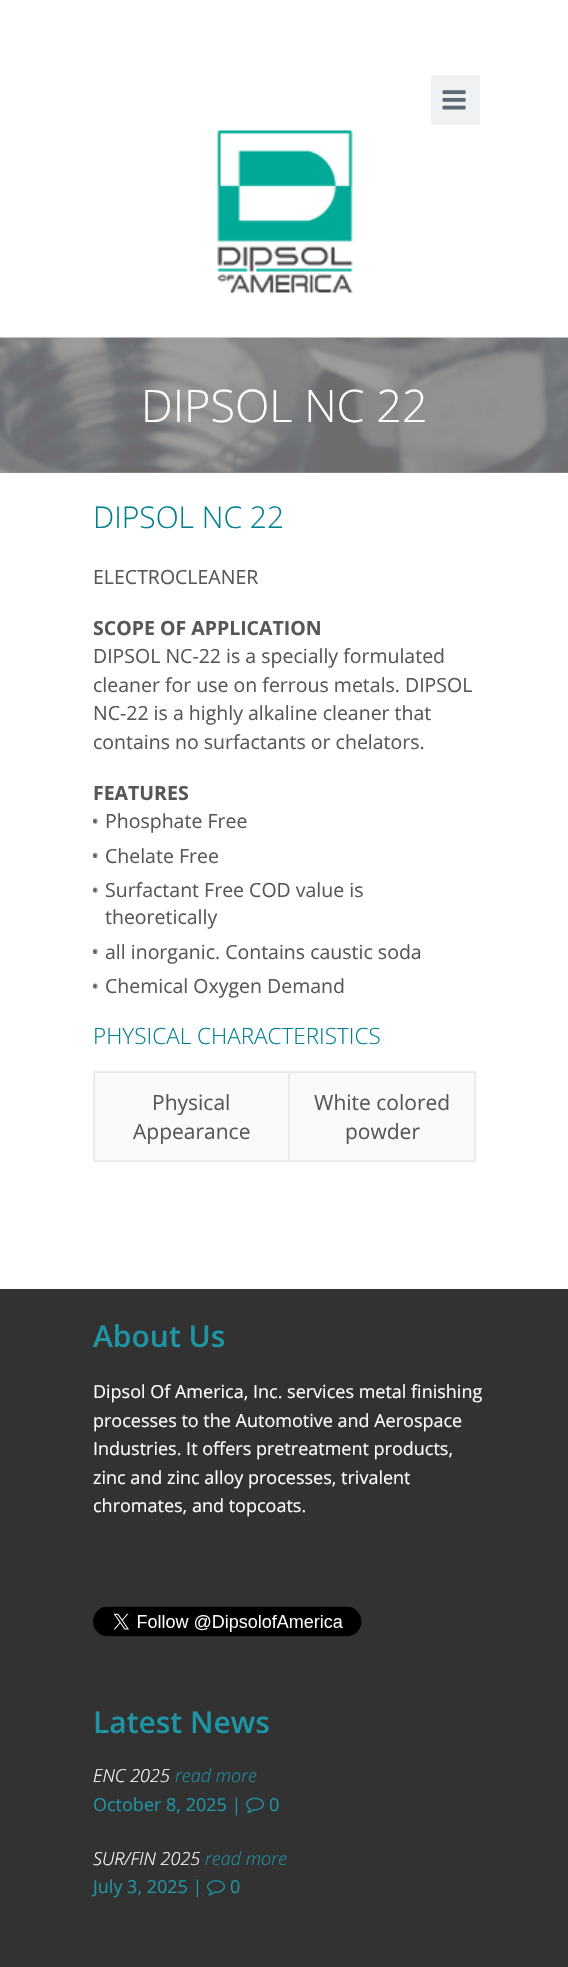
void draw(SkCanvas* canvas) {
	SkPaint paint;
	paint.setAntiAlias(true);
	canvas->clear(0xffffffff);
	paint.setColor(0xffeff1f2);
	canvas->drawRect(SkRect::MakeXYWH(431, 75, 49, 50), paint);
	canvas->drawImageRect(SkImages::DeferredFromEncodedData(SkData::MakeFromFileName("img1.png")), SkRect::MakeXYWH(442, 90, 24, 20), SkSamplingOptions());
	canvas->drawImageRect(SkImages::DeferredFromEncodedData(SkData::MakeFromFileName("img2.png")), SkRect::MakeXYWH(217, 130, 136, 163), SkSamplingOptions());
	paint.setColor(0xff999797);
	canvas->drawRect(SkRect::MakeXYWH(0, 472, 568, 1), paint);
	canvas->drawImageRect(SkImages::DeferredFromEncodedData(SkData::MakeFromFileName("img3.png")), SkRect::MakeXYWH(0, 337, 568, 136), SkSamplingOptions());
	SkFont f1(fontMgr->matchFamilyStyle("Open Sans", SkFontStyle(300, SkFontStyle::kNormal_Width, SkFontStyle::kUpright_Slant)), 45);
	f1.setSubpixel(true);
	paint.setColor(0xffffffff);
	canvas->drawString("DIPSOL NC 22", 141, 422, f1, paint);
	SkFont f2(fontMgr->matchFamilyStyle("Open Sans", SkFontStyle(300, SkFontStyle::kNormal_Width, SkFontStyle::kUpright_Slant)), 30);
	f2.setSubpixel(true);
	paint.setColor(0xff008091);
	canvas->drawString("DIPSOL NC 22", 93, 528, f2, paint);
	SkFont f3(fontMgr->matchFamilyStyle("Open Sans", SkFontStyle::Normal()), 19.5);
	f3.setSubpixel(true);
	paint.setColor(0xff575757);
	canvas->drawString("ELECTROCLEANER", 93, 584, f3, paint);
	SkFont f4(fontMgr->matchFamilyStyle("Open Sans", SkFontStyle::Bold()), 19.5);
	f4.setSubpixel(true);
	canvas->drawString("SCOPE OF APPLICATION", 93, 635, f4, paint);
	canvas->drawString("DIPSOL NC-22 is a specially formulated", 93, 663, f3, paint);
	canvas->drawString("cleaner for use on ferrous metals. DIPSOL", 93, 692, f3, paint);
	canvas->drawString("NC-22 is a highly alkaline cleaner that", 93, 720, f3, paint);
	canvas->drawString("contains no surfactants or chelators.", 93, 749, f3, paint);
	canvas->drawString("FEATURES", 93, 800, f4, paint);
	canvas->drawImageRect(SkImages::DeferredFromEncodedData(SkData::MakeFromFileName("img4.png")), SkRect::MakeXYWH(93, 817, 5, 7), SkSamplingOptions());
	canvas->drawString("Phosphate Free", 105, 828, f3, paint);
	canvas->drawImageRect(SkImages::DeferredFromEncodedData(SkData::MakeFromFileName("img5.png")), SkRect::MakeXYWH(93, 852, 5, 6), SkSamplingOptions());
	canvas->drawString("Chelate Free", 105, 863, f3, paint);
	canvas->drawImageRect(SkImages::DeferredFromEncodedData(SkData::MakeFromFileName("img4.png")), SkRect::MakeXYWH(93, 886, 5, 7), SkSamplingOptions());
	canvas->drawString("Surfactant Free COD value is", 105, 897, f3, paint);
	canvas->drawString("theoretically", 105, 924, f3, paint);
	canvas->drawImageRect(SkImages::DeferredFromEncodedData(SkData::MakeFromFileName("img5.png")), SkRect::MakeXYWH(93, 948, 5, 6), SkSamplingOptions());
	canvas->drawString("all inorganic. Contains caustic soda", 105, 959, f3, paint);
	canvas->drawImageRect(SkImages::DeferredFromEncodedData(SkData::MakeFromFileName("img4.png")), SkRect::MakeXYWH(93, 982, 5, 7), SkSamplingOptions());
	canvas->drawString("Chemical Oxygen Demand", 105, 993, f3, paint);
	SkFont f5(fontMgr->matchFamilyStyle("Open Sans", SkFontStyle(300, SkFontStyle::kNormal_Width, SkFontStyle::kUpright_Slant)), 22.5);
	f5.setSubpixel(true);
	paint.setColor(0xff008091);
	canvas->drawString("PHYSICAL CHARACTERISTICS", 93, 1044, f5, paint);
	paint.setColor(0xfffafafa);
	canvas->drawRect(SkRect::MakeXYWH(95, 1073, 193, 87), paint);
	paint.setColor(0xffebebeb);
	canvas->drawRect(SkRect::MakeXYWH(288, 1071, 188, 2), paint);
	canvas->drawRect(SkRect::MakeXYWH(474, 1071, 2, 90), paint);
	canvas->drawRect(SkRect::MakeXYWH(288, 1160, 188, 2), paint);
	canvas->drawRect(SkRect::MakeXYWH(288, 1071, 2, 90), paint);
	canvas->drawRect(SkRect::MakeXYWH(93, 1071, 197, 2), paint);
	canvas->drawRect(SkRect::MakeXYWH(93, 1160, 197, 2), paint);
	canvas->drawRect(SkRect::MakeXYWH(93, 1071, 2, 90), paint);
	SkFont f6(fontMgr->matchFamilyStyle("Open Sans", SkFontStyle::Normal()), 21);
	f6.setSubpixel(true);
	paint.setColor(0xff575757);
	canvas->drawString("Physical", 152, 1110, f6, paint);
	canvas->drawString("Appearance", 133, 1139, f6, paint);
	paint.setColor(0xfffafafa);
	canvas->drawRect(SkRect::MakeXYWH(290, 1073, 184, 87), paint);
	paint.setColor(0xff575757);
	canvas->drawString("White colored", 314, 1110, f6, paint);
	canvas->drawString("powder", 345, 1139, f6, paint);
	paint.setColor(0xff323232);
	canvas->drawRect(SkRect::MakeXYWH(0, 1289, 568, 678), paint);
	SkFont f7(fontMgr->matchFamilyStyle("Open Sans", SkFontStyle(600, SkFontStyle::kNormal_Width, SkFontStyle::kUpright_Slant)), 30);
	f7.setSubpixel(true);
	paint.setColor(0xff1e95a5);
	canvas->drawString("About Us", 93, 1347, f7, paint);
	SkFont f8(fontMgr->matchFamilyStyle("Open Sans", SkFontStyle::Normal()), 18);
	f8.setSubpixel(true);
	paint.setColor(0xffffffff);
	canvas->drawString("Dipsol Of America, Inc. services metal finishing", 93, 1398, f8, paint);
	canvas->drawString("processes to the Automotive and Aerospace", 93, 1427, f8, paint);
	canvas->drawString("Industries. It offers pretreatment products,", 93, 1455, f8, paint);
	canvas->drawString("zinc and zinc alloy processes, trivalent", 93, 1484, f8, paint);
	canvas->drawString("chromates, and topcoats.", 93, 1512, f8, paint);
	canvas->drawImageRect(SkImages::DeferredFromEncodedData(SkData::MakeFromFileName("img6.png")), SkRect::MakeXYWH(93, 1606, 269, 31), SkSamplingOptions());
	paint.setColor(0xff1e95a5);
	canvas->drawString("Latest News", 93, 1733, f7, paint);
	SkFont f9(fontMgr->matchFamilyStyle("Open Sans", SkFontStyle(300, SkFontStyle::kNormal_Width, SkFontStyle::kItalic_Slant)), 18);
	f9.setSubpixel(true);
	paint.setColor(0xffffffff);
	canvas->drawString("ENC 2025", 93, 1782, f9, paint);
	paint.setColor(0xff1e95a5);
	canvas->drawString("read more", 175, 1782, f9, paint);
	canvas->drawString("October 8, 2025 |", 93, 1811, f8, paint);
	canvas->drawImageRect(SkImages::DeferredFromEncodedData(SkData::MakeFromFileName("img7.png")), SkRect::MakeXYWH(246, 1797, 18, 16), SkSamplingOptions());
	canvas->drawString("0", 269, 1811, f8, paint);
	paint.setColor(0xffffffff);
	canvas->drawString("SUR/FIN 2025", 93, 1865, f9, paint);
	paint.setColor(0xff1e95a5);
	canvas->drawString("read more", 205, 1865, f9, paint);
	canvas->drawString("July 3, 2025 |", 93, 1893, f8, paint);
	canvas->drawImageRect(SkImages::DeferredFromEncodedData(SkData::MakeFromFileName("img8.png")), SkRect::MakeXYWH(207, 1880, 18, 16), SkSamplingOptions());
	canvas->drawString("0", 230, 1893, f8, paint);
}
